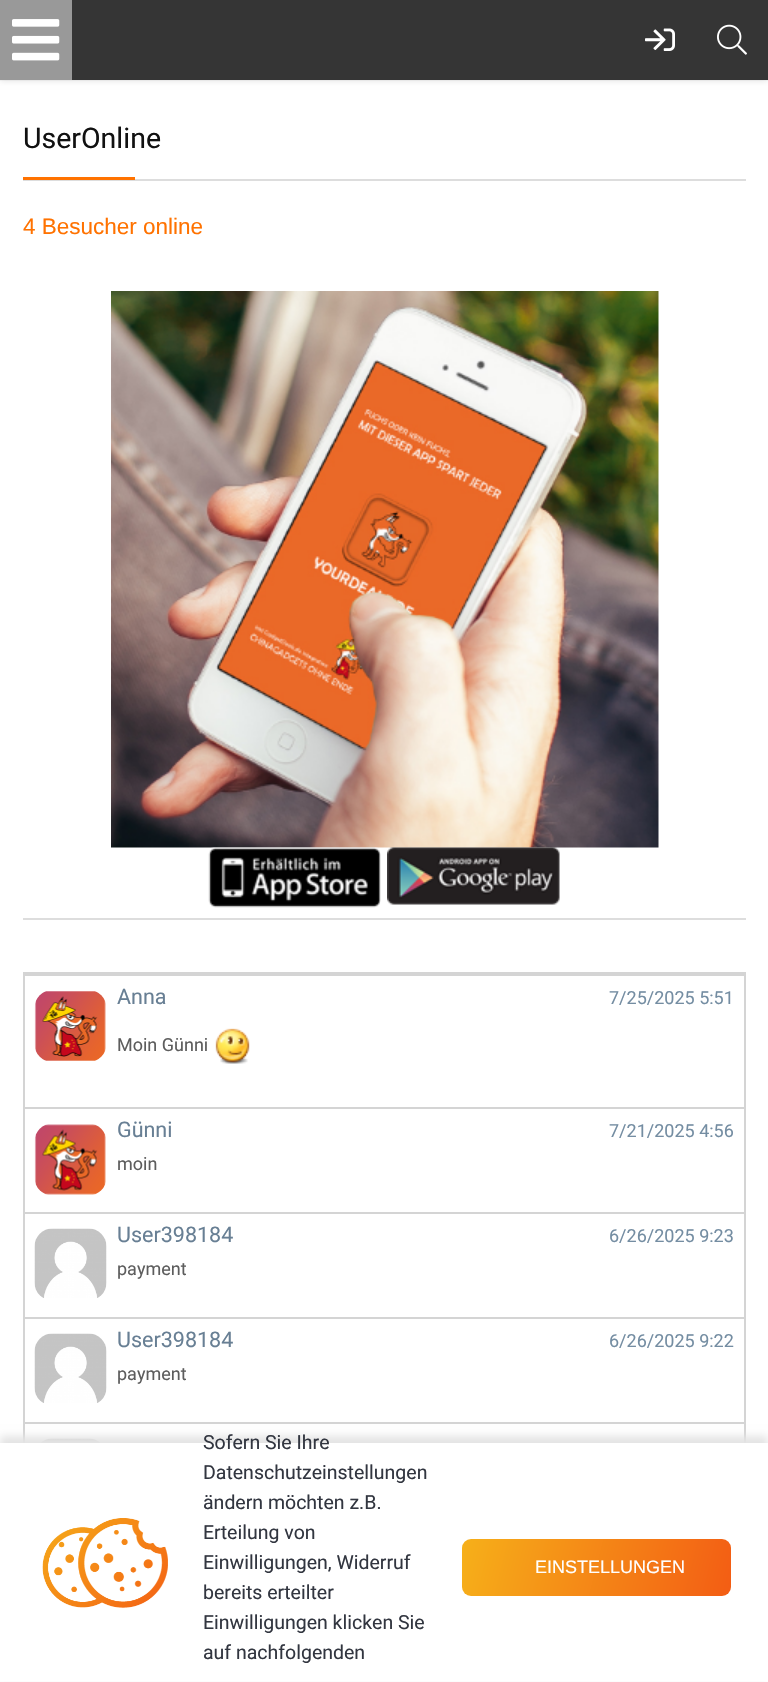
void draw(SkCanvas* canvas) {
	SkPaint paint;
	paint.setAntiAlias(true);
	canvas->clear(0xffffffff);
	paint.setStroke(true);
	paint.setStrokeWidth(2);
	paint.setColor(0x08000000);
	canvas->drawRect(SkRect::MakeXYWH(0, 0, 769, 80), paint);
	paint.setStroke(false);
	paint.setColor(0x1a000000);
	paint.setMaskFilter(SkMaskFilter::MakeBlur(kNormal_SkBlurStyle, 3));
	canvas->drawRect(SkRect::MakeXYWH(0, 2, 768, 79), paint);
	paint.setMaskFilter(nullptr);
	paint.setColor(0xff353535);
	canvas->drawRect(SkRect::MakeXYWH(72, 0, 696, 80), paint);
	paint.setColor(0xff999999);
	canvas->drawRect(SkRect::MakeXYWH(0, 0, 72, 80), paint);
	canvas->drawImageRect(SkImages::DeferredFromEncodedData(SkData::MakeFromFileName("img1.png")), SkRect::MakeXYWH(12, 19, 48, 42), SkSamplingOptions());
	canvas->drawImageRect(SkImages::DeferredFromEncodedData(SkData::MakeFromFileName("img2.png")), SkRect::MakeXYWH(645, 28, 30, 23), SkSamplingOptions());
	canvas->drawImageRect(SkImages::DeferredFromEncodedData(SkData::MakeFromFileName("img3.png")), SkRect::MakeXYWH(717, 24, 30, 31), SkSamplingOptions());
	paint.setColor(0xffdddddd);
	canvas->drawRect(SkRect::MakeXYWH(23, 179, 723, 2), paint);
	SkFont f1(fontMgr->matchFamilyStyle("Roboto", SkFontStyle::Normal()), 28.5);
	f1.setSubpixel(true);
	paint.setColor(0xff111111);
	canvas->drawString("UserOnline", 23, 148, f1, paint);
	paint.setColor(0xffff7200);
	canvas->drawRect(SkRect::MakeXYWH(23, 177, 112, 3), paint);
	SkFont f2(fontMgr->matchFamilyStyle("Liberation Sans", SkFontStyle::Normal()), 22.5);
	f2.setSubpixel(true);
	canvas->drawString("4 Besucher online", 23, 234, f2, paint);
	canvas->drawImageRect(SkImages::DeferredFromEncodedData(SkData::MakeFromFileName("img4.png")), SkRect::MakeXYWH(111, 291, 548, 557), SkSamplingOptions());
	canvas->drawImageRect(SkImages::DeferredFromEncodedData(SkData::MakeFromFileName("img5.png")), SkRect::MakeXYWH(208, 847, 173, 61), SkSamplingOptions());
	canvas->drawImageRect(SkImages::DeferredFromEncodedData(SkData::MakeFromFileName("img6.png")), SkRect::MakeXYWH(387, 847, 173, 58), SkSamplingOptions());
	paint.setColor(0xffdddddd);
	canvas->drawRect(SkRect::MakeXYWH(23, 918, 723, 2), paint);
	paint.setStroke(true);
	paint.setColor(0xffd4d4d4);
	canvas->drawRect(SkRect::MakeXYWH(24, 973, 721, 598), paint);
	paint.setStroke(false);
	canvas->drawRect(SkRect::MakeXYWH(24, 974, 720, 2), paint);
	canvas->drawImageRect(SkImages::DeferredFromEncodedData(SkData::MakeFromFileName("img7.png")), SkRect::MakeXYWH(34, 991, 72, 70), SkSamplingOptions());
	SkFont f3(fontMgr->matchFamilyStyle("Roboto", SkFontStyle::Normal()), 21.5);
	f3.setSubpixel(true);
	paint.setColor(0xff687f94);
	canvas->drawString("Anna", 117, 1004, f3, paint);
	SkFont f4(fontMgr->matchFamilyStyle("Roboto", SkFontStyle::Normal()), 18);
	f4.setSubpixel(true);
	paint.setColor(0xff748da2);
	canvas->drawString("7/25/2025 5:51", 609, 1004, f4, paint);
	paint.setColor(0xff5d5d5d);
	canvas->drawString("Moin Günni", 117, 1051, f4, paint);
	canvas->drawImageRect(SkImages::DeferredFromEncodedData(SkData::MakeFromFileName("img8.png")), SkRect::MakeXYWH(215, 1028, 35, 36), SkSamplingOptions());
	paint.setColor(0xffd4d4d4);
	canvas->drawRect(SkRect::MakeXYWH(24, 1107, 720, 2), paint);
	canvas->drawImageRect(SkImages::DeferredFromEncodedData(SkData::MakeFromFileName("img9.png")), SkRect::MakeXYWH(34, 1124, 72, 71), SkSamplingOptions());
	paint.setColor(0xff687f94);
	canvas->drawString("Günni", 117, 1137, f3, paint);
	paint.setColor(0xff748da2);
	canvas->drawString("7/21/2025 4:56", 609, 1137, f4, paint);
	paint.setColor(0xff5d5d5d);
	canvas->drawString("moin", 117, 1170, f4, paint);
	paint.setColor(0xffd4d4d4);
	canvas->drawRect(SkRect::MakeXYWH(24, 1212, 720, 2), paint);
	canvas->drawImageRect(SkImages::DeferredFromEncodedData(SkData::MakeFromFileName("img10.png")), SkRect::MakeXYWH(34, 1228, 73, 70), SkSamplingOptions());
	paint.setColor(0xff687f94);
	canvas->drawString("User398184", 117, 1242, f3, paint);
	paint.setColor(0xff748da2);
	canvas->drawString("6/26/2025 9:23", 609, 1242, f4, paint);
	paint.setColor(0xff5d5d5d);
	canvas->drawString("payment", 117, 1275, f4, paint);
	paint.setColor(0xffd4d4d4);
	canvas->drawRect(SkRect::MakeXYWH(24, 1317, 720, 2), paint);
	canvas->drawImageRect(SkImages::DeferredFromEncodedData(SkData::MakeFromFileName("img11.png")), SkRect::MakeXYWH(34, 1333, 73, 70), SkSamplingOptions());
	paint.setColor(0xff687f94);
	canvas->drawString("User398184", 117, 1347, f3, paint);
	paint.setColor(0xff748da2);
	canvas->drawString("6/26/2025 9:22", 609, 1347, f4, paint);
	paint.setColor(0xff5d5d5d);
	canvas->drawString("payment", 117, 1380, f4, paint);
	paint.setColor(0xffd4d4d4);
	canvas->drawRect(SkRect::MakeXYWH(24, 1422, 720, 2), paint);
	canvas->drawImageRect(SkImages::DeferredFromEncodedData(SkData::MakeFromFileName("img12.png")), SkRect::MakeXYWH(40, 1438, 61, 5), SkSamplingOptions());
	paint.setColor(0xffe4e4e4);
	paint.setMaskFilter(SkMaskFilter::MakeBlur(kNormal_SkBlurStyle, 4));
	canvas->drawRect(SkRect::MakeXYWH(0, 1436, 768, 240), paint);
	paint.setMaskFilter(nullptr);
	paint.setColor(0xffffffff);
	canvas->drawRect(SkRect::MakeXYWH(0, 1443, 768, 238), paint);
	canvas->drawImageRect(SkImages::DeferredFromEncodedData(SkData::MakeFromFileName("img13.png")), SkRect::MakeXYWH(42, 1518, 126, 90), SkSamplingOptions());
	SkFont f5(fontMgr->matchFamilyStyle("Roboto", SkFontStyle::Normal()), 19.5);
	f5.setSubpixel(true);
	paint.setColor(0xff323640);
	canvas->drawString("Sofern Sie Ihre", 203, 1449, f5, paint);
	canvas->drawString("Datenschutzeinstellungen", 203, 1479, f5, paint);
	canvas->drawString("ändern möchten z.B.", 203, 1509, f5, paint);
	canvas->drawString("Erteilung von", 203, 1539, f5, paint);
	canvas->drawString("Einwilligungen, Widerruf", 203, 1569, f5, paint);
	canvas->drawString("bereits erteilter", 203, 1599, f5, paint);
	canvas->drawString("Einwilligungen klicken Sie", 203, 1629, f5, paint);
	canvas->drawString("auf nachfolgenden", 203, 1659, f5, paint);
	{
		const SkColor colors[] = {0xfff6b019, 0xfff35d14};
		const float stops[] = {0, 1};
		const SkPoint ends[] = {{463, 1534}, {729, 1601}};
		paint.setShader(SkGradientShader::MakeLinear(ends, colors, stops, 2, SkTileMode::kClamp));
		paint.setAlpha(255);
	}
	canvas->drawRoundRect(SkRect::MakeXYWH(462, 1539, 269, 57), 9, 9, paint);
	SkFont f6(fontMgr->matchFamilyStyle("Liberation Sans", SkFontStyle::Normal()), 18);
	f6.setSubpixel(true);
	paint.setShader(nullptr);
	paint.setColor(0xffffffff);
	canvas->drawString("EINSTELLUNGEN", 535, 1573, f6, paint);
}
